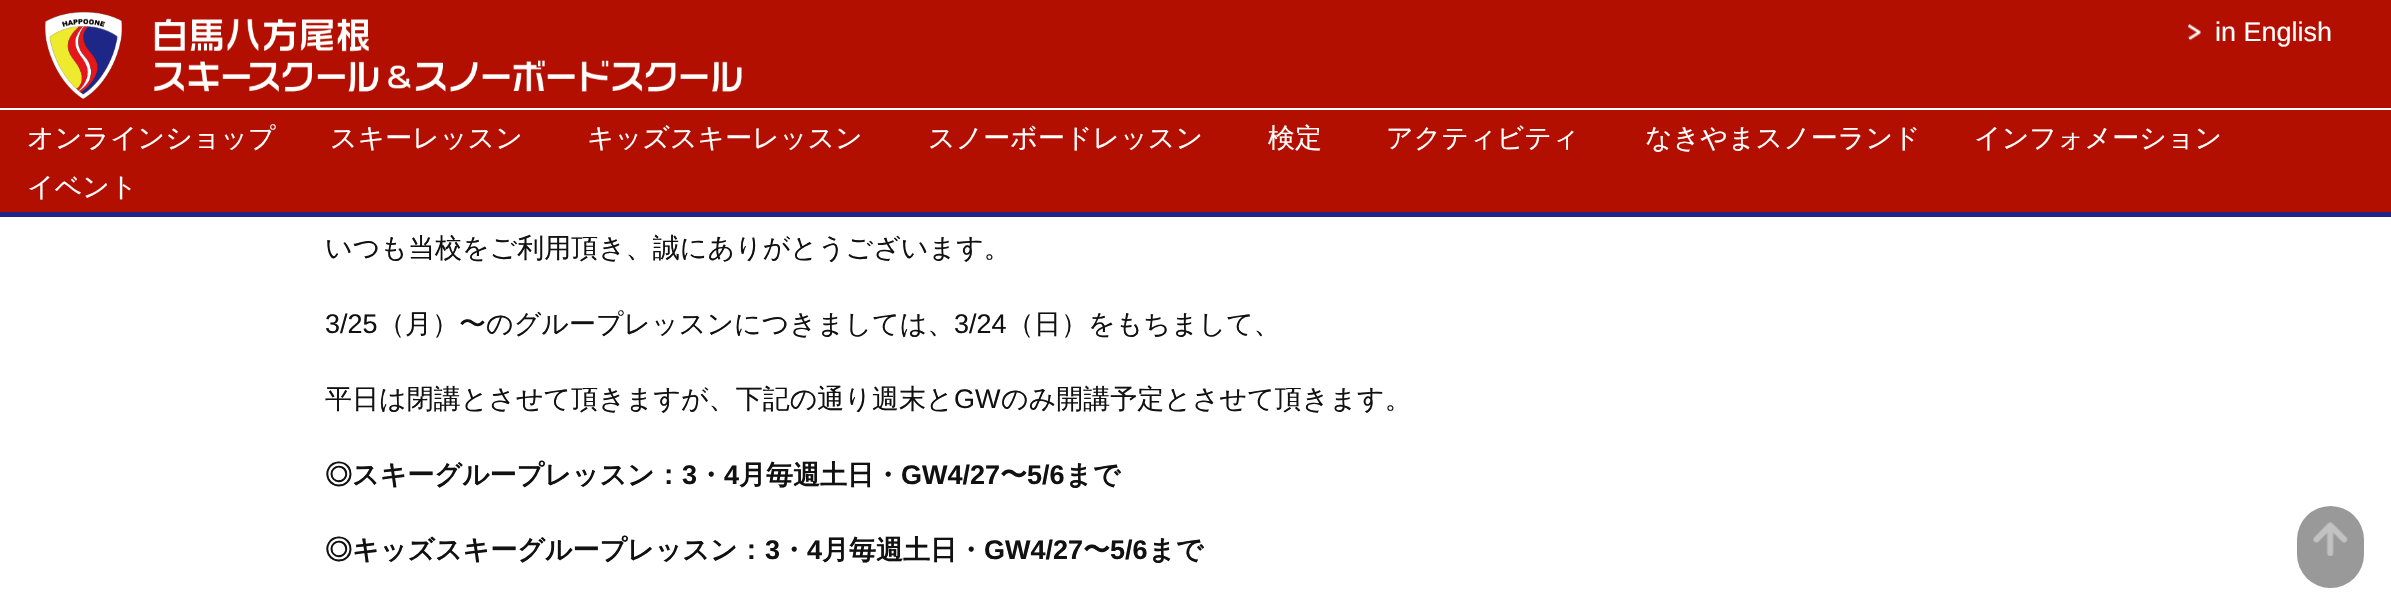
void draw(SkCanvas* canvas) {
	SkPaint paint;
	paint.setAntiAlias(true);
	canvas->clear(0xffffffff);
	paint.setColor(0xffb20f00);
	canvas->drawRect(SkRect::MakeXYWH(0, 0, 2391, 212), paint);
	paint.setColor(0xffffffff);
	canvas->drawRect(SkRect::MakeXYWH(0, 108, 2391, 2), paint);
	canvas->drawImageRect(SkImages::DeferredFromEncodedData(SkData::MakeFromFileName("img1.png")), SkRect::MakeXYWH(45, 12, 697, 87), SkSamplingOptions());
	canvas->drawImageRect(SkImages::DeferredFromEncodedData(SkData::MakeFromFileName("img2.png")), SkRect::MakeXYWH(2188, 24, 13, 17), SkSamplingOptions());
	SkFont f1(fontMgr->matchFamilyStyle("Liberation Sans", SkFontStyle::Normal()), 27);
	f1.setSubpixel(true);
	canvas->drawString("in English", 2215, 41, f1, paint);
	paint.setColor(0xff1e2787);
	canvas->drawRect(SkRect::MakeXYWH(0, 212, 2391, 5), paint);
	SkFont f2(fontMgr->matchFamilyStyle("WenQuanYi Zen Hei", SkFontStyle(500, SkFontStyle::kNormal_Width, SkFontStyle::kUpright_Slant)), 27);
	f2.setSubpixel(true);
	paint.setColor(0xffffffff);
	canvas->drawString("オンラインショップ", 27, 147, f2, paint);
	canvas->drawString("スキーレッスン", 330, 147, f2, paint);
	canvas->drawString("キッズスキーレッスン", 587, 147, f2, paint);
	canvas->drawString("スノーボードレッスン", 928, 147, f2, paint);
	canvas->drawString("検定", 1268, 147, f2, paint);
	canvas->drawString("アクティビティ", 1386, 147, f2, paint);
	canvas->drawString("なきやまスノーランド", 1645, 147, f2, paint);
	canvas->drawString("インフォメーション", 1974, 147, f2, paint);
	canvas->drawString("イベント", 27, 196, f2, paint);
	paint.setColor(0xff111111);
	canvas->drawString("いつも当校をご利用頂き、誠にありがとうございます。", 325, 257, f2, paint);
	canvas->drawString("3/25", 325, 333, f1, paint);
	canvas->drawString("（月）〜のグループレッスンにつきましては、", 378, 333, f2, paint);
	canvas->drawString("3/24", 954, 333, f1, paint);
	canvas->drawString("（日）をもちまして、", 1007, 333, f2, paint);
	canvas->drawString("平日は閉講とさせて頂きますが、下記の通り週末と", 325, 408, f2, paint);
	canvas->drawString("GW", 954, 408, f1, paint);
	canvas->drawString("のみ開講予定とさせて頂きます。", 1001, 408, f2, paint);
	SkFont f3(fontMgr->matchFamilyStyle("WenQuanYi Zen Hei", SkFontStyle::Bold()), 27);
	f3.setSubpixel(true);
	canvas->drawString("◎スキーグループレッスン：", 325, 484, f3, paint);
	SkFont f4(fontMgr->matchFamilyStyle("Liberation Sans", SkFontStyle::Bold()), 27);
	f4.setSubpixel(true);
	canvas->drawString("3", 682, 484, f4, paint);
	canvas->drawString("・", 697, 484, f3, paint);
	canvas->drawString("4", 724, 484, f4, paint);
	canvas->drawString("月毎週土日・", 739, 484, f3, paint);
	canvas->drawString("GW4/27", 901, 484, f4, paint);
	canvas->drawString("〜", 1000, 484, f3, paint);
	canvas->drawString("5/6", 1027, 484, f4, paint);
	canvas->drawString("まで", 1065, 484, f3, paint);
	canvas->drawString("◎キッズスキーグループレッスン：", 325, 559, f3, paint);
	canvas->drawString("3", 765, 559, f4, paint);
	canvas->drawString("・", 780, 559, f3, paint);
	canvas->drawString("4", 807, 559, f4, paint);
	canvas->drawString("月毎週土日・", 822, 559, f3, paint);
	canvas->drawString("GW4/27", 984, 559, f4, paint);
	canvas->drawString("〜", 1083, 559, f3, paint);
	canvas->drawString("5/6", 1110, 559, f4, paint);
	canvas->drawString("まで", 1148, 559, f3, paint);
	paint.setColor(0xff999999);
	canvas->drawRoundRect(SkRect::MakeXYWH(2297, 506, 67, 82), 33.5, 33.5, paint);
	canvas->drawImageRect(SkImages::DeferredFromEncodedData(SkData::MakeFromFileName("img3.png")), SkRect::MakeXYWH(2313, 522, 35, 34), SkSamplingOptions());
}
